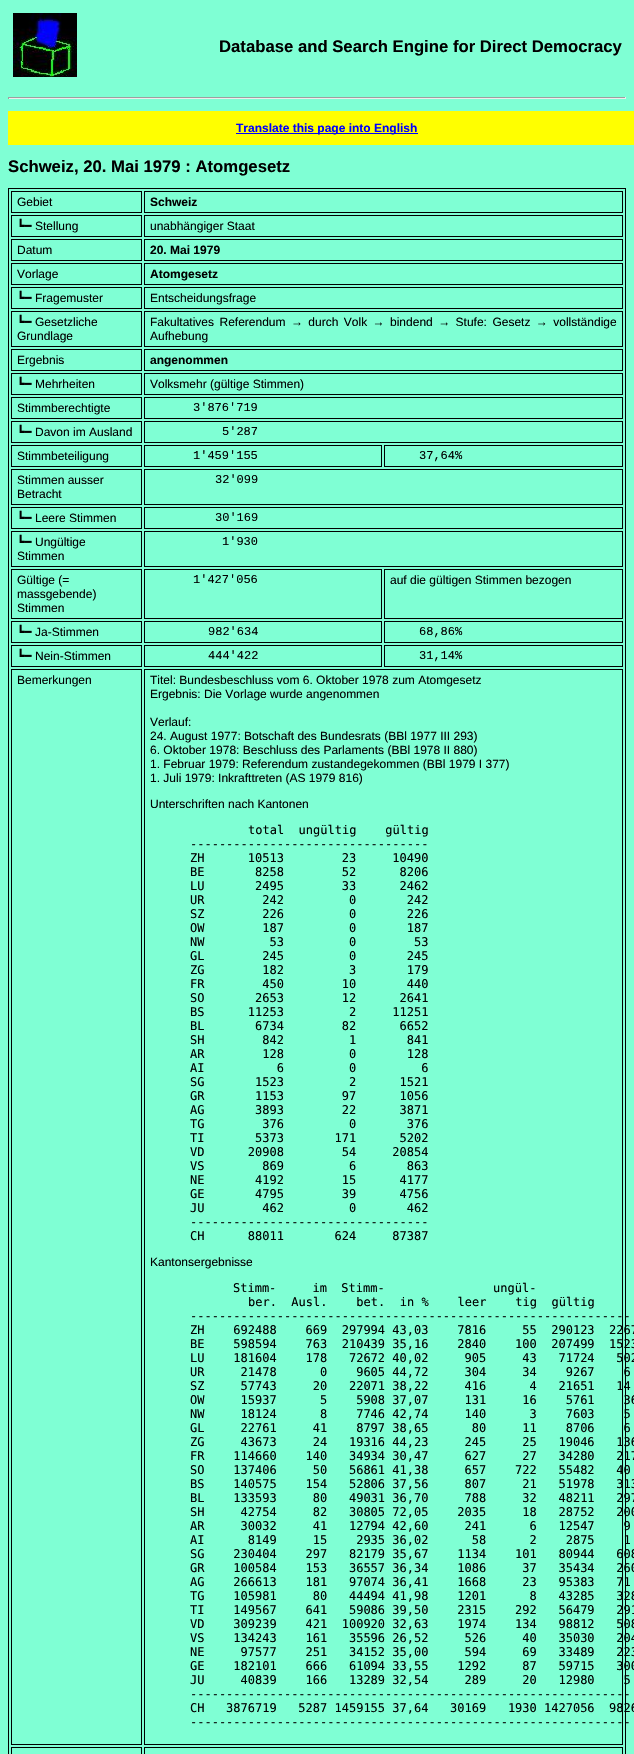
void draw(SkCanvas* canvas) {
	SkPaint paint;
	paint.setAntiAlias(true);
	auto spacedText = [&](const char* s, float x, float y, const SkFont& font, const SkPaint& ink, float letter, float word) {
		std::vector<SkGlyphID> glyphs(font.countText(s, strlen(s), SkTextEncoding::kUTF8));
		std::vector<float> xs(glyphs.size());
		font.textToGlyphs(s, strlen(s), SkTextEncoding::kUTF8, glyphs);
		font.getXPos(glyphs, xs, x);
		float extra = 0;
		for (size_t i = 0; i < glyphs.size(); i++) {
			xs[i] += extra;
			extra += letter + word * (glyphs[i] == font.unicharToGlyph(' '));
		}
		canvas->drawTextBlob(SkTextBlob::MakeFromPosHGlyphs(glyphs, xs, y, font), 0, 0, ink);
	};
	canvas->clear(0xff7fffd4);
	canvas->drawImageRect(SkImages::DeferredFromEncodedData(SkData::MakeFromFileName("img1.png")), SkRect::MakeXYWH(13, 13, 64, 64), SkSamplingOptions());
	SkFont f1(fontMgr->matchFamilyStyle("Liberation Sans", SkFontStyle::Bold()), 16.7);
	f1.setSubpixel(true);
	paint.setColor(0xff000000);
	canvas->drawString("Database and Search Engine for Direct Democracy", 219, 52, f1, paint);
	paint.setColor(0xff9f9f9f);
	canvas->drawRect(SkRect::MakeXYWH(8, 97, 618, 1), paint);
	paint.setColor(0xffeeeeee);
	canvas->drawRect(SkRect::MakeXYWH(625, 97, 1, 2), paint);
	canvas->drawRect(SkRect::MakeXYWH(8, 98, 618, 1), paint);
	paint.setColor(0xff9f9f9f);
	canvas->drawRect(SkRect::MakeXYWH(8, 97, 1, 2), paint);
	paint.setColor(0xffffff00);
	canvas->drawRect(SkRect::MakeXYWH(8, 111, 626, 34), paint);
	paint.setColor(0xff0000ff);
	canvas->drawRect(SkRect::MakeXYWH(236, 133, 182, 1), paint);
	SkFont f2(fontMgr->matchFamilyStyle("Liberation Sans", SkFontStyle::Bold()), 12);
	f2.setSubpixel(true);
	canvas->drawString("Translate this page into English", 236, 132, f2, paint);
	paint.setColor(0xff000000);
	canvas->drawString("Schweiz, 20. Mai 1979 : Atomgesetz", 8, 172, f1, paint);
	paint.setStroke(true);
	paint.setStrokeWidth(1);
	canvas->drawRect(SkRect::MakeXYWH(8.5, 188.5, 617, 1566), paint);
	canvas->drawRect(SkRect::MakeXYWH(11.5, 191.5, 130, 21), paint);
	SkFont f3(fontMgr->matchFamilyStyle("Liberation Sans", SkFontStyle::Normal()), 12);
	f3.setSubpixel(true);
	paint.setStroke(false);
	canvas->drawString("Gebiet", 17, 206, f3, paint);
	paint.setStroke(true);
	canvas->drawRect(SkRect::MakeXYWH(144.5, 191.5, 478, 21), paint);
	paint.setStroke(false);
	canvas->drawString("Schweiz", 150, 206, f2, paint);
	paint.setStroke(true);
	canvas->drawRect(SkRect::MakeXYWH(11.5, 215.5, 130, 21), paint);
	SkFont f4(fontMgr->matchFamilyStyle("DejaVu Sans", SkFontStyle::Normal()), 12);
	f4.setSubpixel(true);
	paint.setStroke(false);
	canvas->drawString("┗━", 17, 230, f4, paint);
	canvas->drawString("Stellung", 35, 230, f3, paint);
	paint.setStroke(true);
	canvas->drawRect(SkRect::MakeXYWH(144.5, 215.5, 478, 21), paint);
	paint.setStroke(false);
	canvas->drawString("unabhängiger Staat", 150, 230, f3, paint);
	paint.setStroke(true);
	canvas->drawRect(SkRect::MakeXYWH(11.5, 239.5, 130, 21), paint);
	paint.setStroke(false);
	canvas->drawString("Datum", 17, 254, f3, paint);
	paint.setStroke(true);
	canvas->drawRect(SkRect::MakeXYWH(144.5, 239.5, 478, 21), paint);
	paint.setStroke(false);
	canvas->drawString("20. Mai 1979", 150, 254, f2, paint);
	paint.setStroke(true);
	canvas->drawRect(SkRect::MakeXYWH(11.5, 263.5, 130, 21), paint);
	paint.setStroke(false);
	canvas->drawString("Vorlage", 17, 278, f3, paint);
	paint.setStroke(true);
	canvas->drawRect(SkRect::MakeXYWH(144.5, 263.5, 478, 21), paint);
	paint.setStroke(false);
	canvas->drawString("Atomgesetz", 150, 278, f2, paint);
	paint.setStroke(true);
	canvas->drawRect(SkRect::MakeXYWH(11.5, 287.5, 130, 21), paint);
	paint.setStroke(false);
	canvas->drawString("┗━", 17, 302, f4, paint);
	canvas->drawString("Fragemuster", 35, 302, f3, paint);
	paint.setStroke(true);
	canvas->drawRect(SkRect::MakeXYWH(144.5, 287.5, 478, 21), paint);
	paint.setStroke(false);
	canvas->drawString("Entscheidungsfrage", 150, 302, f3, paint);
	paint.setStroke(true);
	canvas->drawRect(SkRect::MakeXYWH(11.5, 311.5, 130, 35), paint);
	paint.setStroke(false);
	canvas->drawString("┗━", 17, 326, f4, paint);
	canvas->drawString("Gesetzliche", 35, 326, f3, paint);
	canvas->drawString("Grundlage", 17, 340, f3, paint);
	paint.setStroke(true);
	canvas->drawRect(SkRect::MakeXYWH(144.5, 311.5, 478, 35), paint);
	paint.setStroke(false);
	spacedText("Fakultatives Referendum → durch Volk → bindend → Stufe: Gesetz → vollständige", 150, 326, f3, paint, 0, 2.1);
	canvas->drawString("Aufhebung", 150, 340, f3, paint);
	paint.setStroke(true);
	canvas->drawRect(SkRect::MakeXYWH(11.5, 349.5, 130, 21), paint);
	paint.setStroke(false);
	canvas->drawString("Ergebnis", 17, 364, f3, paint);
	paint.setStroke(true);
	canvas->drawRect(SkRect::MakeXYWH(144.5, 349.5, 478, 21), paint);
	paint.setStroke(false);
	canvas->drawString("angenommen", 150, 364, f2, paint);
	paint.setStroke(true);
	canvas->drawRect(SkRect::MakeXYWH(11.5, 373.5, 130, 21), paint);
	paint.setStroke(false);
	canvas->drawString("┗━", 17, 388, f4, paint);
	canvas->drawString("Mehrheiten", 35, 388, f3, paint);
	paint.setStroke(true);
	canvas->drawRect(SkRect::MakeXYWH(144.5, 373.5, 478, 21), paint);
	paint.setStroke(false);
	canvas->drawString("Volksmehr (gültige Stimmen)", 150, 388, f3, paint);
	paint.setStroke(true);
	canvas->drawRect(SkRect::MakeXYWH(11.5, 397.5, 130, 21), paint);
	paint.setStroke(false);
	canvas->drawString("Stimmberechtigte", 17, 412, f3, paint);
	paint.setStroke(true);
	canvas->drawRect(SkRect::MakeXYWH(144.5, 397.5, 478, 21), paint);
	SkFont f5(fontMgr->matchFamilyStyle("Liberation Mono", SkFontStyle::Normal()), 12);
	f5.setSubpixel(true);
	paint.setStroke(false);
	canvas->drawString("3'876'719", 193, 411, f5, paint);
	paint.setStroke(true);
	canvas->drawRect(SkRect::MakeXYWH(11.5, 421.5, 130, 21), paint);
	paint.setStroke(false);
	canvas->drawString("┗━", 17, 436, f4, paint);
	canvas->drawString("Davon im Ausland", 35, 436, f3, paint);
	paint.setStroke(true);
	canvas->drawRect(SkRect::MakeXYWH(144.5, 421.5, 478, 21), paint);
	paint.setStroke(false);
	canvas->drawString("5'287", 222, 435, f5, paint);
	paint.setStroke(true);
	canvas->drawRect(SkRect::MakeXYWH(11.5, 445.5, 130, 21), paint);
	paint.setStroke(false);
	canvas->drawString("Stimmbeteiligung", 17, 460, f3, paint);
	paint.setStroke(true);
	canvas->drawRect(SkRect::MakeXYWH(144.5, 445.5, 237, 21), paint);
	paint.setStroke(false);
	canvas->drawString("1'459'155", 193, 459, f5, paint);
	paint.setStroke(true);
	canvas->drawRect(SkRect::MakeXYWH(384.5, 445.5, 238, 21), paint);
	paint.setStroke(false);
	canvas->drawString("37,64%", 419, 459, f5, paint);
	paint.setStroke(true);
	canvas->drawRect(SkRect::MakeXYWH(11.5, 469.5, 130, 35), paint);
	paint.setStroke(false);
	canvas->drawString("Stimmen ausser", 17, 484, f3, paint);
	canvas->drawString("Betracht", 17, 498, f3, paint);
	paint.setStroke(true);
	canvas->drawRect(SkRect::MakeXYWH(144.5, 469.5, 478, 35), paint);
	paint.setStroke(false);
	canvas->drawString("32'099", 215, 483, f5, paint);
	paint.setStroke(true);
	canvas->drawRect(SkRect::MakeXYWH(11.5, 507.5, 130, 21), paint);
	paint.setStroke(false);
	canvas->drawString("┗━", 17, 522, f4, paint);
	canvas->drawString("Leere Stimmen", 35, 522, f3, paint);
	paint.setStroke(true);
	canvas->drawRect(SkRect::MakeXYWH(144.5, 507.5, 478, 21), paint);
	paint.setStroke(false);
	canvas->drawString("30'169", 215, 521, f5, paint);
	paint.setStroke(true);
	canvas->drawRect(SkRect::MakeXYWH(11.5, 531.5, 130, 35), paint);
	paint.setStroke(false);
	canvas->drawString("┗━", 17, 546, f4, paint);
	canvas->drawString("Ungültige", 35, 546, f3, paint);
	canvas->drawString("Stimmen", 17, 560, f3, paint);
	paint.setStroke(true);
	canvas->drawRect(SkRect::MakeXYWH(144.5, 531.5, 478, 35), paint);
	paint.setStroke(false);
	canvas->drawString("1'930", 222, 545, f5, paint);
	paint.setStroke(true);
	canvas->drawRect(SkRect::MakeXYWH(11.5, 569.5, 130, 49), paint);
	paint.setStroke(false);
	canvas->drawString("Gültige (=", 17, 584, f3, paint);
	canvas->drawString("massgebende)", 17, 598, f3, paint);
	canvas->drawString("Stimmen", 17, 612, f3, paint);
	paint.setStroke(true);
	canvas->drawRect(SkRect::MakeXYWH(144.5, 569.5, 237, 49), paint);
	paint.setStroke(false);
	canvas->drawString("1'427'056", 193, 583, f5, paint);
	paint.setStroke(true);
	canvas->drawRect(SkRect::MakeXYWH(384.5, 569.5, 238, 49), paint);
	paint.setStroke(false);
	canvas->drawString("auf die gültigen Stimmen bezogen", 390, 584, f3, paint);
	paint.setStroke(true);
	canvas->drawRect(SkRect::MakeXYWH(11.5, 621.5, 130, 21), paint);
	paint.setStroke(false);
	canvas->drawString("┗━", 17, 636, f4, paint);
	canvas->drawString("Ja-Stimmen", 35, 636, f3, paint);
	paint.setStroke(true);
	canvas->drawRect(SkRect::MakeXYWH(144.5, 621.5, 237, 21), paint);
	paint.setStroke(false);
	canvas->drawString("982'634", 208, 635, f5, paint);
	paint.setStroke(true);
	canvas->drawRect(SkRect::MakeXYWH(384.5, 621.5, 238, 21), paint);
	paint.setStroke(false);
	canvas->drawString("68,86%", 419, 635, f5, paint);
	paint.setStroke(true);
	canvas->drawRect(SkRect::MakeXYWH(11.5, 645.5, 130, 21), paint);
	paint.setStroke(false);
	canvas->drawString("┗━", 17, 660, f4, paint);
	canvas->drawString("Nein-Stimmen", 35, 660, f3, paint);
	paint.setStroke(true);
	canvas->drawRect(SkRect::MakeXYWH(144.5, 645.5, 237, 21), paint);
	paint.setStroke(false);
	canvas->drawString("444'422", 208, 659, f5, paint);
	paint.setStroke(true);
	canvas->drawRect(SkRect::MakeXYWH(384.5, 645.5, 238, 21), paint);
	paint.setStroke(false);
	canvas->drawString("31,14%", 419, 659, f5, paint);
	paint.setStroke(true);
	canvas->drawRect(SkRect::MakeXYWH(11.5, 669.5, 130, 1075), paint);
	paint.setStroke(false);
	canvas->drawString("Bemerkungen", 17, 684, f3, paint);
	paint.setStroke(true);
	canvas->drawRect(SkRect::MakeXYWH(144.5, 669.5, 478, 1075), paint);
	paint.setStroke(false);
	canvas->drawString("Titel: Bundesbeschluss vom 6. Oktober 1978 zum Atomgesetz", 150, 684, f3, paint);
	canvas->drawString("Ergebnis: Die Vorlage wurde angenommen", 150, 698, f3, paint);
	canvas->drawString("Verlauf:", 150, 726, f3, paint);
	canvas->drawString("24. August 1977: Botschaft des Bundesrats (BBl 1977 III 293)", 150, 740, f3, paint);
	canvas->drawString("6. Oktober 1978: Beschluss des Parlaments (BBl 1978 II 880)", 150, 754, f3, paint);
	canvas->drawString("1. Februar 1979: Referendum zustandegekommen (BBl 1979 I 377)", 150, 768, f3, paint);
	canvas->drawString("1. Juli 1979: Inkrafttreten (AS 1979 816)", 150, 782, f3, paint);
	canvas->drawString("Unterschriften nach Kantonen", 150, 808, f3, paint);
	SkFont f6(fontMgr->matchFamilyStyle("DejaVu Sans Mono", SkFontStyle::Normal()), 12);
	f6.setSubpixel(true);
	canvas->drawString("total  ungültig    gültig", 248, 834, f6, paint);
	canvas->drawString("---------------------------------", 190, 848, f6, paint);
	canvas->drawString("ZH      10513        23     10490", 190, 862, f6, paint);
	canvas->drawString("BE       8258        52      8206", 190, 876, f6, paint);
	canvas->drawString("LU       2495        33      2462", 190, 890, f6, paint);
	canvas->drawString("UR        242         0       242", 190, 904, f6, paint);
	canvas->drawString("SZ        226         0       226", 190, 918, f6, paint);
	canvas->drawString("OW        187         0       187", 190, 932, f6, paint);
	canvas->drawString("NW         53         0        53", 190, 946, f6, paint);
	canvas->drawString("GL        245         0       245", 190, 960, f6, paint);
	canvas->drawString("ZG        182         3       179", 190, 974, f6, paint);
	canvas->drawString("FR        450        10       440", 190, 988, f6, paint);
	canvas->drawString("SO       2653        12      2641", 190, 1002, f6, paint);
	canvas->drawString("BS      11253         2     11251", 190, 1016, f6, paint);
	canvas->drawString("BL       6734        82      6652", 190, 1030, f6, paint);
	canvas->drawString("SH        842         1       841", 190, 1044, f6, paint);
	canvas->drawString("AR        128         0       128", 190, 1058, f6, paint);
	canvas->drawString("AI          6         0         6", 190, 1072, f6, paint);
	canvas->drawString("SG       1523         2      1521", 190, 1086, f6, paint);
	canvas->drawString("GR       1153        97      1056", 190, 1100, f6, paint);
	canvas->drawString("AG       3893        22      3871", 190, 1114, f6, paint);
	canvas->drawString("TG        376         0       376", 190, 1128, f6, paint);
	canvas->drawString("TI       5373       171      5202", 190, 1142, f6, paint);
	canvas->drawString("VD      20908        54     20854", 190, 1156, f6, paint);
	canvas->drawString("VS        869         6       863", 190, 1170, f6, paint);
	canvas->drawString("NE       4192        15      4177", 190, 1184, f6, paint);
	canvas->drawString("GE       4795        39      4756", 190, 1198, f6, paint);
	canvas->drawString("JU        462         0       462", 190, 1212, f6, paint);
	canvas->drawString("---------------------------------", 190, 1226, f6, paint);
	canvas->drawString("CH      88011       624     87387", 190, 1240, f6, paint);
	canvas->drawString("Kantonsergebnisse", 150, 1266, f3, paint);
	canvas->drawString("Stimm-     im  Stimm-               ungül-", 233, 1292, f6, paint);
	canvas->drawString("ber.  Ausl.    bet.  in %    leer    tig  gültig", 248, 1306, f6, paint);
	canvas->drawString("-------------------------------------------------------------", 190, 1320, f6, paint);
	canvas->drawString("ZH    692488    669  297994 43,03    7816     55  290123  2267", 190, 1334, f6, paint);
	canvas->drawString("BE    598594    763  210439 35,16    2840    100  207499  1523", 190, 1348, f6, paint);
	canvas->drawString("LU    181604    178   72672 40,02     905     43   71724   502", 190, 1362, f6, paint);
	canvas->drawString("UR     21478      0    9605 44,72     304     34    9267    6", 190, 1376, f6, paint);
	canvas->drawString("SZ     57743     20   22071 38,22     416      4   21651   14", 190, 1390, f6, paint);
	canvas->drawString("OW     15937      5    5908 37,07     131     16    5761    36", 190, 1404, f6, paint);
	canvas->drawString("NW     18124      8    7746 42,74     140      3    7603    5", 190, 1418, f6, paint);
	canvas->drawString("GL     22761     41    8797 38,65      80     11    8706    6", 190, 1432, f6, paint);
	canvas->drawString("ZG     43673     24   19316 44,23     245     25   19046   136", 190, 1446, f6, paint);
	canvas->drawString("FR    114660    140   34934 30,47     627     27   34280   217", 190, 1460, f6, paint);
	canvas->drawString("SO    137406     50   56861 41,38     657    722   55482   40", 190, 1474, f6, paint);
	canvas->drawString("BS    140575    154   52806 37,56     807     21   51978   313", 190, 1488, f6, paint);
	canvas->drawString("BL    133593     80   49031 36,70     788     32   48211   297", 190, 1502, f6, paint);
	canvas->drawString("SH     42754     82   30805 72,05    2035     18   28752   200", 190, 1516, f6, paint);
	canvas->drawString("AR     30032     41   12794 42,60     241      6   12547    9", 190, 1530, f6, paint);
	canvas->drawString("AI      8149     15    2935 36,02      58      2    2875    1", 190, 1544, f6, paint);
	canvas->drawString("SG    230404    297   82179 35,67    1134    101   80944   608", 190, 1558, f6, paint);
	canvas->drawString("GR    100584    153   36557 36,34    1086     37   35434   260", 190, 1572, f6, paint);
	canvas->drawString("AG    266613    181   97074 36,41    1668     23   95383   71", 190, 1586, f6, paint);
	canvas->drawString("TG    105981     80   44494 41,98    1201      8   43285   328", 190, 1600, f6, paint);
	canvas->drawString("TI    149567    641   59086 39,50    2315    292   56479   291", 190, 1614, f6, paint);
	canvas->drawString("VD    309239    421  100920 32,63    1974    134   98812   508", 190, 1628, f6, paint);
	canvas->drawString("VS    134243    161   35596 26,52     526     40   35030   204", 190, 1642, f6, paint);
	canvas->drawString("NE     97577    251   34152 35,00     594     69   33489   223", 190, 1656, f6, paint);
	canvas->drawString("GE    182101    666   61094 33,55    1292     87   59715   300", 190, 1670, f6, paint);
	canvas->drawString("JU     40839    166   13289 32,54     289     20   12980    5", 190, 1684, f6, paint);
	canvas->drawString("-------------------------------------------------------------", 190, 1698, f6, paint);
	canvas->drawString("CH   3876719   5287 1459155 37,64   30169   1930 1427056  9826", 190, 1712, f6, paint);
	canvas->drawString("-------------------------------------------------------------", 190, 1726, f6, paint);
	paint.setStroke(true);
	canvas->drawRect(SkRect::MakeXYWH(11.5, 1747.5, 130, 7), paint);
	canvas->drawRect(SkRect::MakeXYWH(144.5, 1747.5, 478, 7), paint);
}
